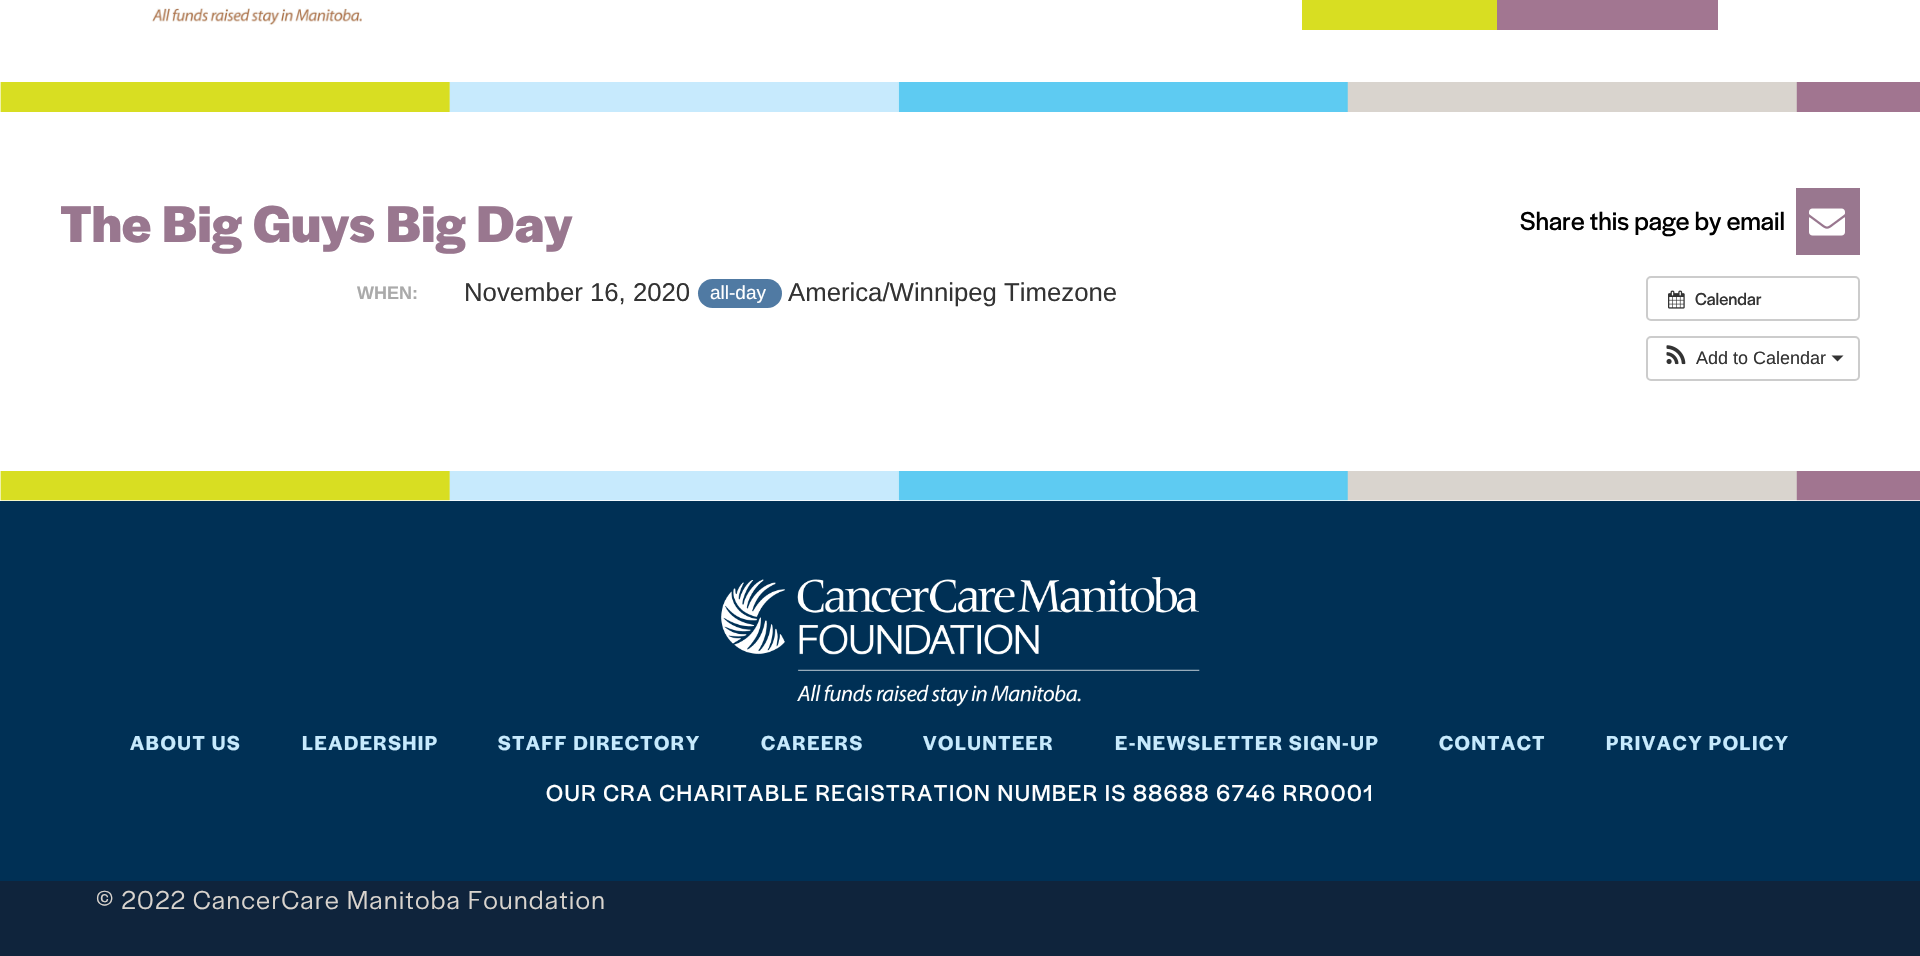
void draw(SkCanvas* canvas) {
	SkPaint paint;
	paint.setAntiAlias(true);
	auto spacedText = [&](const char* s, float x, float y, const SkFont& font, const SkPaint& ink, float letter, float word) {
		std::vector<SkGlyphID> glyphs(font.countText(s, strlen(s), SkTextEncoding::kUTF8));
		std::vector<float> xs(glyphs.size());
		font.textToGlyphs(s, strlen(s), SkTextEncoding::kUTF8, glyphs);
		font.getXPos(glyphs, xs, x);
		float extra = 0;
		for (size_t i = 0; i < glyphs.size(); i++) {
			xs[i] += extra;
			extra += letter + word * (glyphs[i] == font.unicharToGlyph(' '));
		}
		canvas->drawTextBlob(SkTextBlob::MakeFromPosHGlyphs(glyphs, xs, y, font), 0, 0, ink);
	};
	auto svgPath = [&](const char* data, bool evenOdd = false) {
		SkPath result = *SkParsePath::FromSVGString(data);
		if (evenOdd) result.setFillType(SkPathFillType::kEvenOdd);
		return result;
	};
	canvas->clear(0xffffffff);
	canvas->drawImageRect(SkImages::DeferredFromEncodedData(SkData::MakeFromFileName("img1.png")), SkRect::MakeXYWH(151, 8, 211, 17), SkSamplingOptions());
	paint.setColor(0xffd8de22);
	canvas->drawRect(SkRect::MakeXYWH(1302, 0, 195, 30), paint);
	paint.setColor(0xffa27691);
	canvas->drawRect(SkRect::MakeXYWH(1497, 0, 221, 30), paint);
	canvas->drawImageRect(SkImages::DeferredFromEncodedData(SkData::MakeFromFileName("img2.png")), SkRect::MakeXYWH(0, 82, 1920, 30), SkSamplingOptions());
	SkFont f1(fontMgr->matchFamilyStyle("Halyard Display", SkFontStyle::Bold()), 54);
	f1.setSubpixel(true);
	paint.setColor(0xff99778f);
	canvas->drawString("The Big Guys Big Day", 60, 242, f1, paint);
	SkFont f2(fontMgr->matchFamilyStyle("Halyard Display", SkFontStyle::Normal()), 27);
	f2.setSubpixel(true);
	paint.setColor(0xff000000);
	canvas->drawString("Share this page by email", 1520, 230, f2, paint);
	paint.setColor(0xff99778f);
	canvas->drawRect(SkRect::MakeXYWH(1796, 188, 64, 67), paint);
	canvas->drawImageRect(SkImages::DeferredFromEncodedData(SkData::MakeFromFileName("img3.png")), SkRect::MakeXYWH(1809, 208, 36, 28), SkSamplingOptions());
	SkFont f3(fontMgr->matchFamilyStyle("Liberation Sans", SkFontStyle::Bold()), 18);
	f3.setSubpixel(true);
	paint.setColor(0xffaaaaaa);
	canvas->drawString("WHEN:", 357, 299, f3, paint);
	SkFont f4(fontMgr->matchFamilyStyle("Liberation Sans", SkFontStyle::Normal()), 25.75);
	f4.setSubpixel(true);
	paint.setColor(0xff333333);
	canvas->drawString("November 16, 2020", 464, 301, f4, paint);
	paint.setColor(0xff507aa3);
	canvas->drawRoundRect(SkRect::MakeXYWH(698, 279, 84, 29), 14.5, 14.5, paint);
	SkFont f5(fontMgr->matchFamilyStyle("Liberation Sans", SkFontStyle::Normal()), 19);
	f5.setSubpixel(true);
	paint.setColor(0xffffffff);
	canvas->drawString("all-day", 710, 299, f5, paint);
	paint.setColor(0xff333333);
	canvas->drawString("America/Winnipeg Timezone", 788, 301, f4, paint);
	paint.setStroke(true);
	paint.setStrokeWidth(2);
	paint.setColor(0xffcccccc);
	canvas->drawRoundRect(SkRect::MakeXYWH(1647, 277, 212, 43), 4, 4, paint);
	canvas->drawImageRect(SkImages::DeferredFromEncodedData(SkData::MakeFromFileName("img4.png")), SkRect::MakeXYWH(1668, 290, 17, 19), SkSamplingOptions());
	SkFont f6(fontMgr->matchFamilyStyle("Halyard Display", SkFontStyle::Normal()), 18);
	f6.setSubpixel(true);
	paint.setStroke(false);
	paint.setColor(0xff333333);
	canvas->drawString("Calendar", 1695, 305, f6, paint);
	paint.setStroke(true);
	paint.setColor(0xffcccccc);
	canvas->drawRoundRect(SkRect::MakeXYWH(1647, 337, 212, 43), 4, 4, paint);
	canvas->drawImageRect(SkImages::DeferredFromEncodedData(SkData::MakeFromFileName("img5.png")), SkRect::MakeXYWH(1666, 345, 20, 20), SkSamplingOptions());
	SkFont f7(fontMgr->matchFamilyStyle("Liberation Sans", SkFontStyle::Normal()), 18);
	f7.setSubpixel(true);
	paint.setStroke(false);
	paint.setColor(0xff333333);
	canvas->drawString("Add to Calendar", 1696, 364, f7, paint);
	canvas->drawPath(svgPath("M1831.5 355.5H1843.5L1837.5 361.5Z"), paint);
	canvas->drawImageRect(SkImages::DeferredFromEncodedData(SkData::MakeFromFileName("img6.png")), SkRect::MakeXYWH(0, 471, 1920, 30), SkSamplingOptions());
	paint.setColor(0xff003055);
	canvas->drawRect(SkRect::MakeXYWH(0, 501, 1920, 380), paint);
	canvas->drawImageRect(SkImages::DeferredFromEncodedData(SkData::MakeFromFileName("img7.png")), SkRect::MakeXYWH(721, 577, 479, 130), SkSamplingOptions());
	SkFont f8(fontMgr->matchFamilyStyle("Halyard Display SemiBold", SkFontStyle(600, SkFontStyle::kNormal_Width, SkFontStyle::kUpright_Slant)), 21);
	f8.setSubpixel(true);
	paint.setColor(0xffc7eafd);
	spacedText("ABOUT US", 130, 750, f8, paint, 1.5, 0);
	spacedText("LEADERSHIP", 302, 750, f8, paint, 1.5, 0);
	spacedText("STAFF DIRECTORY", 498, 750, f8, paint, 1.5, 0);
	spacedText("CAREERS", 761, 750, f8, paint, 1.5, 0);
	spacedText("VOLUNTEER", 923, 750, f8, paint, 1.5, 0);
	spacedText("E-NEWSLETTER SIGN-UP", 1115, 750, f8, paint, 1.5, 0);
	spacedText("CONTACT", 1439, 750, f8, paint, 1.5, 0);
	spacedText("PRIVACY POLICY", 1606, 750, f8, paint, 1.5, 0);
	SkFont f9(fontMgr->matchFamilyStyle("Halyard Display", SkFontStyle::Normal()), 24);
	f9.setSubpixel(true);
	paint.setColor(0xffffffff);
	spacedText("OUR CRA CHARITABLE REGISTRATION NUMBER IS 88688 6746 RR0001", 546, 801, f9, paint, 1.5, 0);
	paint.setColor(0xff0f243c);
	canvas->drawRect(SkRect::MakeXYWH(0, 881, 1920, 75), paint);
	SkFont f10(fontMgr->matchFamilyStyle("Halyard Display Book", SkFontStyle::Normal()), 27);
	f10.setSubpixel(true);
	paint.setColor(0xffd9d4ce);
	spacedText("© 2022 CancerCare Manitoba Foundation", 96, 909, f10, paint, 1.5, 0);
}
